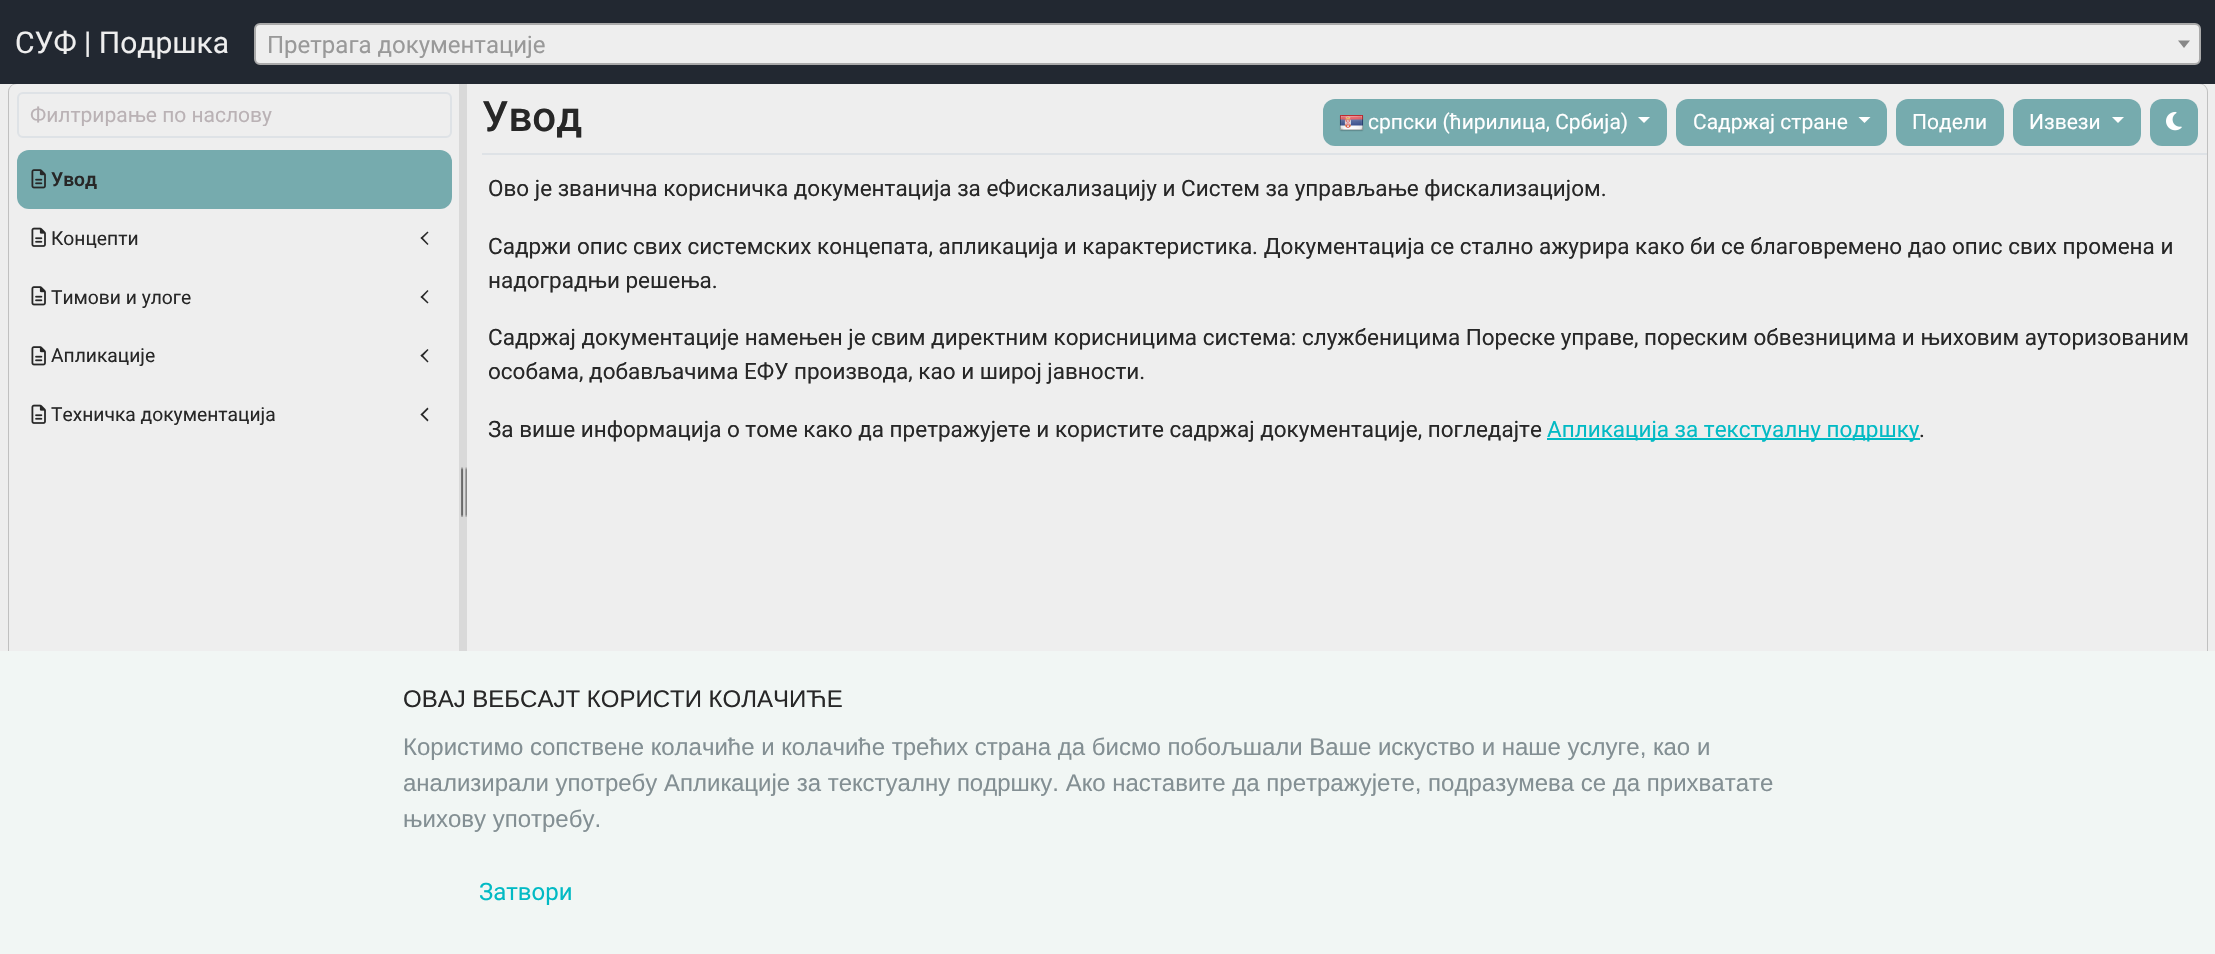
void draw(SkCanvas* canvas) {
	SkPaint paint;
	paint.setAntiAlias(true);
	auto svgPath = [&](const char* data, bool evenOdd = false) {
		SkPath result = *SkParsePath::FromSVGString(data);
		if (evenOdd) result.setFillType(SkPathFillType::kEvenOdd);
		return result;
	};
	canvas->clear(0xffeeeeee);
	paint.setStroke(true);
	paint.setStrokeWidth(2);
	paint.setColor(0xffc0c0c0);
	canvas->drawRoundRect(SkRect::MakeXYWH(9, 84, 2198, 817), 8, 8, paint);
	paint.setStroke(false);
	paint.setColor(0xff222831);
	canvas->drawRect(SkRect::MakeXYWH(0, 0, 2215, 84), paint);
	SkFont f1(fontMgr->matchFamilyStyle("Roboto", SkFontStyle::Normal()), 30);
	f1.setSubpixel(true);
	paint.setColor(0xffeeeeee);
	canvas->drawString("СУФ | Подршка", 15, 53, f1, paint);
	canvas->drawRoundRect(SkRect::MakeXYWH(255, 24, 1945, 40), 5, 5, paint);
	paint.setStroke(true);
	paint.setColor(0xffaaaaaa);
	canvas->drawRoundRect(SkRect::MakeXYWH(255, 24, 1945, 40), 5, 5, paint);
	SkFont f2(fontMgr->matchFamilyStyle("Roboto", SkFontStyle::Normal()), 24);
	f2.setSubpixel(true);
	paint.setStroke(false);
	paint.setColor(0xff999999);
	canvas->drawString("Претрага документације", 267, 53, f2, paint);
	paint.setColor(0xff888888);
	canvas->drawPath(svgPath("M2178 40.5H2190L2184 48Z"), paint);
	paint.setColor(0xffeeeeee);
	canvas->drawPath(svgPath("M17 84H459V878H9V92C9 87.5 12.5 84 17 84Z"), paint);
	paint.setStroke(true);
	paint.setColor(0xffdee2e6);
	canvas->drawRoundRect(SkRect::MakeXYWH(18, 93, 433, 44), 5, 5, paint);
	canvas->save();
	canvas->clipRect(SkRect::MakeXYWH(30, 102, 408, 24));
	SkFont f3(fontMgr->matchFamilyStyle("Roboto", SkFontStyle::Normal()), 21);
	f3.setSubpixel(true);
	paint.setStroke(false);
	paint.setColor(0xffbab2b5);
	canvas->drawString("Филтрирање по наслову", 30, 122, f3, paint);
	canvas->restore();
	paint.setColor(0xff76abae);
	canvas->drawRoundRect(SkRect::MakeXYWH(17, 150, 435, 59), 12, 12, paint);
	canvas->drawImageRect(SkImages::DeferredFromEncodedData(SkData::MakeFromFileName("img1.png")), SkRect::MakeXYWH(31, 169, 15, 20), SkSamplingOptions());
	SkFont f4(fontMgr->matchFamilyStyle("Roboto", SkFontStyle(600, SkFontStyle::kNormal_Width, SkFontStyle::kUpright_Slant)), 19.25);
	f4.setSubpixel(true);
	paint.setColor(0xff272727);
	canvas->drawString("Увод", 51, 186, f4, paint);
	canvas->drawImageRect(SkImages::DeferredFromEncodedData(SkData::MakeFromFileName("img2.png")), SkRect::MakeXYWH(31, 227, 15, 20), SkSamplingOptions());
	SkFont f5(fontMgr->matchFamilyStyle("Roboto", SkFontStyle::Normal()), 19.25);
	f5.setSubpixel(true);
	canvas->drawString("Концепти", 51, 245, f5, paint);
	canvas->drawPath(svgPath("M420.5 238L427.5 231.5L428.5 232.5L422 239Z"), paint);
	canvas->drawPath(svgPath("M420.5 238L422 237L428.5 244L427.5 245Z"), paint);
	canvas->drawImageRect(SkImages::DeferredFromEncodedData(SkData::MakeFromFileName("img3.png")), SkRect::MakeXYWH(31, 286, 15, 20), SkSamplingOptions());
	canvas->drawString("Тимови и улоге", 51, 304, f5, paint);
	canvas->drawPath(svgPath("M420.5 297L427.5 290L428.5 291L422 298Z"), paint);
	canvas->drawPath(svgPath("M420.5 297L422 296L428.5 302.5L427.5 303.5Z"), paint);
	canvas->drawImageRect(SkImages::DeferredFromEncodedData(SkData::MakeFromFileName("img3.png")), SkRect::MakeXYWH(31, 346, 15, 20), SkSamplingOptions());
	canvas->drawString("Апликације", 51, 362, f5, paint);
	canvas->drawPath(svgPath("M420.5 355.5L427.5 349L428.5 350L422 357Z"), paint);
	canvas->drawPath(svgPath("M420.5 355.5L422 354.5L428.5 361.5L427.5 362.5Z"), paint);
	canvas->drawImageRect(SkImages::DeferredFromEncodedData(SkData::MakeFromFileName("img2.png")), SkRect::MakeXYWH(31, 404, 15, 20), SkSamplingOptions());
	canvas->drawString("Техничка документација", 51, 421, f5, paint);
	canvas->drawPath(svgPath("M420.5 414.5L427.5 407.5L428.5 409L422 415.5Z"), paint);
	canvas->drawPath(svgPath("M420.5 414.5L422 413.5L428.5 420L427.5 421.5Z"), paint);
	paint.setColor(0xffd9d9d9);
	canvas->drawRect(SkRect::MakeXYWH(459, 84, 8, 567), paint);
	canvas->drawImageRect(SkImages::DeferredFromEncodedData(SkData::MakeFromFileName("img4.png")), SkRect::MakeXYWH(461, 467, 6, 50), SkSamplingOptions());
	paint.setColor(0xffeeeeee);
	canvas->drawPath(svgPath("M467 84H2199C2203.5 84 2207 87.5 2207 92V892C2207 896.5 2203.5 900 2199 900H467Z"), paint);
	paint.setColor(0xffdee2e6);
	canvas->drawRect(SkRect::MakeXYWH(482, 153, 1725, 2), paint);
	SkFont f6(fontMgr->matchFamilyStyle("Roboto", SkFontStyle(500, SkFontStyle::kNormal_Width, SkFontStyle::kUpright_Slant)), 42);
	f6.setSubpixel(true);
	paint.setColor(0xff272727);
	canvas->drawString("Увод", 482, 131, f6, paint);
	paint.setColor(0xff76abae);
	canvas->drawRoundRect(SkRect::MakeXYWH(1323, 99, 344, 47), 12, 12, paint);
	canvas->drawImageRect(SkImages::DeferredFromEncodedData(SkData::MakeFromFileName("img5.png")), SkRect::MakeXYWH(1339, 115, 25, 17), SkSamplingOptions());
	paint.setColor(0xffffffff);
	canvas->drawString("српски (ћирилица, Србија)", 1368, 129, f3, paint);
	canvas->drawPath(svgPath("M1638 117H1650L1644 123Z"), paint);
	paint.setColor(0xff76abae);
	canvas->drawRoundRect(SkRect::MakeXYWH(1676, 99, 211, 47), 12, 12, paint);
	paint.setColor(0xffffffff);
	canvas->drawString("Садржај стране", 1693, 129, f3, paint);
	canvas->drawPath(svgPath("M1858.5 117H1870.5L1864.5 123Z"), paint);
	paint.setColor(0xff76abae);
	canvas->drawRoundRect(SkRect::MakeXYWH(1896, 99, 108, 47), 12, 12, paint);
	paint.setColor(0xffffffff);
	canvas->drawString("Подели", 1912, 129, f3, paint);
	paint.setColor(0xff76abae);
	canvas->drawRoundRect(SkRect::MakeXYWH(2013, 99, 128, 47), 12, 12, paint);
	paint.setColor(0xffffffff);
	canvas->drawString("Извези", 2029, 129, f3, paint);
	canvas->drawPath(svgPath("M2112 117H2124L2118 123Z"), paint);
	paint.setColor(0xff76abae);
	canvas->drawRoundRect(SkRect::MakeXYWH(2150, 99, 48, 47), 12, 12, paint);
	canvas->drawImageRect(SkImages::DeferredFromEncodedData(SkData::MakeFromFileName("img6.png")), SkRect::MakeXYWH(2166, 111, 16, 20), SkSamplingOptions());
	SkFont f7(fontMgr->matchFamilyStyle("Roboto", SkFontStyle::Normal()), 22.5);
	f7.setSubpixel(true);
	paint.setColor(0xff272727);
	canvas->drawString("Ово је званична корисничка документација за еФискализацију и Систем за управљање фискализацијом.", 488, 196, f7, paint);
	canvas->drawString("Садржи опис свих системских концепата, апликација и карактеристика. Документација се стално ажурира како би се благовремено дао опис свих промена и", 488, 254, f7, paint);
	canvas->drawString("надоградњи решења.", 488, 288, f7, paint);
	canvas->drawString("Садржај документације намењен је свим директним корисницима система: службеницима Пореске управе, пореским обвезницима и њиховим ауторизованим", 488, 345, f7, paint);
	canvas->drawString("особама, добављачима ЕФУ производа, као и широј јавности.", 488, 379, f7, paint);
	canvas->drawString("За више информација о томе како да претражујете и користите садржај документације, погледајте", 488, 437, f7, paint);
	paint.setColor(0xff02bac4);
	canvas->drawRect(SkRect::MakeXYWH(1547, 438, 373, 2), paint);
	canvas->drawString("Апликација за текстуалну подршку", 1547, 437, f7, paint);
	paint.setColor(0xff272727);
	canvas->drawString(".", 1919, 437, f7, paint);
	paint.setColor(0xfff1f6f4);
	canvas->drawRect(SkRect::MakeXYWH(0, 651, 2215, 303), paint);
	SkFont f8(fontMgr->matchFamilyStyle("Liberation Sans", SkFontStyle::Normal()), 24);
	f8.setSubpixel(true);
	paint.setColor(0xff272727);
	canvas->drawString("ОВАЈ ВЕБСАЈТ КОРИСТИ КОЛАЧИЋЕ", 403, 707, f8, paint);
	paint.setColor(0xff838f93);
	canvas->drawString("Користимо сопствене колачиће и колачиће трећих страна да бисмо побољшали Ваше искуство и наше услуге, као и", 403, 755, f8, paint);
	canvas->drawString("анализирали употребу Апликацијe за текстуалну подршку. Ако наставите да претражујете, подразумева се да прихватате", 403, 791, f8, paint);
	canvas->drawString("њихову употребу.", 403, 827, f8, paint);
	paint.setColor(0xff02bac4);
	canvas->drawString("Затвори", 479, 900, f2, paint);
}
